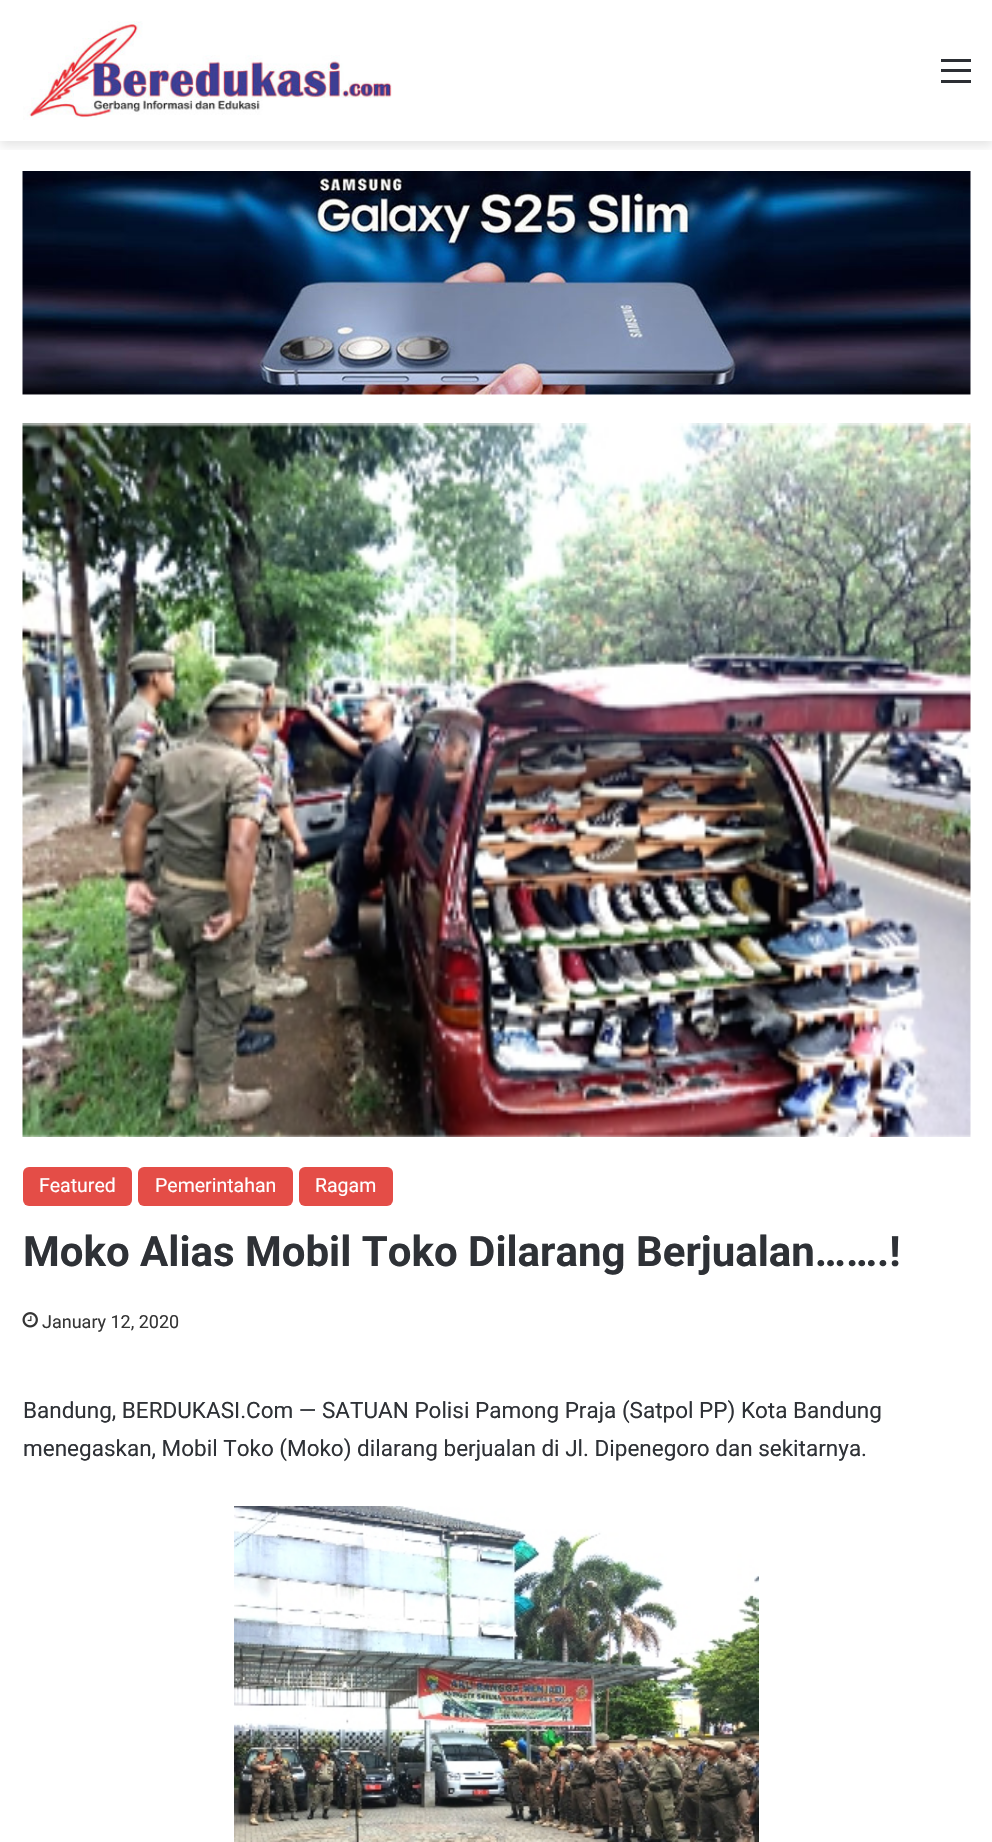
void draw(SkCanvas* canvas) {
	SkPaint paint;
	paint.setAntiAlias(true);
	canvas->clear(0xffffffff);
	canvas->save();
	canvas->clipRect(SkRect::MakeXYWH(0, 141, 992, 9));
	paint.setColor(0x1a000000);
	paint.setMaskFilter(SkMaskFilter::MakeBlur(kNormal_SkBlurStyle, 5));
	canvas->drawRect(SkRect::MakeXYWH(0, 5, 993, 141), paint);
	paint.setMaskFilter(nullptr);
	canvas->restore();
	canvas->drawImageRect(SkImages::DeferredFromEncodedData(SkData::MakeFromFileName("img1.png")), SkRect::MakeXYWH(23, 21, 369, 99), SkSamplingOptions());
	paint.setColor(0xff2c2f34);
	canvas->drawRect(SkRect::MakeXYWH(941, 69, 30, 3), paint);
	canvas->drawRect(SkRect::MakeXYWH(941, 59, 30, 3), paint);
	canvas->drawRect(SkRect::MakeXYWH(941, 80, 30, 3), paint);
	canvas->drawImageRect(SkImages::DeferredFromEncodedData(SkData::MakeFromFileName("img2.png")), SkRect::MakeXYWH(22, 171, 949, 224), SkSamplingOptions());
	canvas->drawImageRect(SkImages::DeferredFromEncodedData(SkData::MakeFromFileName("img3.png")), SkRect::MakeXYWH(22, 423, 949, 714), SkSamplingOptions());
	paint.setColor(0xffe44d47);
	canvas->drawRoundRect(SkRect::MakeXYWH(23, 1167, 109, 39), 6, 6, paint);
	SkFont f1(fontMgr->matchFamilyStyle("Roboto", SkFontStyle::Normal()), 19.5);
	f1.setSubpixel(true);
	paint.setColor(0xffffffff);
	canvas->drawString("Featured", 39, 1192, f1, paint);
	paint.setColor(0xffe44d47);
	canvas->drawRoundRect(SkRect::MakeXYWH(138, 1167, 155, 39), 6, 6, paint);
	paint.setColor(0xffffffff);
	canvas->drawString("Pemerintahan", 155, 1192, f1, paint);
	paint.setColor(0xffe44d47);
	canvas->drawRoundRect(SkRect::MakeXYWH(299, 1167, 94, 39), 6, 6, paint);
	paint.setColor(0xffffffff);
	canvas->drawString("Ragam", 315, 1192, f1, paint);
	SkFont f2(fontMgr->matchFamilyStyle("Roboto", SkFontStyle::Bold()), 42);
	f2.setSubpixel(true);
	paint.setColor(0xff2e3136);
	canvas->drawString("Moko Alias Mobil Toko Dilarang Berjualan…….!", 23, 1266, f2, paint);
	canvas->drawImageRect(SkImages::DeferredFromEncodedData(SkData::MakeFromFileName("img4.png")), SkRect::MakeXYWH(22, 1312, 16, 16), SkSamplingOptions());
	SkFont f3(fontMgr->matchFamilyStyle("Roboto", SkFontStyle::Normal()), 18);
	f3.setSubpixel(true);
	paint.setColor(0xff353535);
	canvas->drawString("January 12, 2020", 42, 1328, f3, paint);
	SkFont f4(fontMgr->matchFamilyStyle("Roboto", SkFontStyle::Normal()), 22.5);
	f4.setSubpixel(true);
	paint.setColor(0xff2e3136);
	canvas->drawString("Bandung, BERDUKASI.Com — SATUAN Polisi Pamong Praja (Satpol PP) Kota Bandung", 23, 1418, f4, paint);
	canvas->drawString("menegaskan, Mobil Toko (Moko) dilarang berjualan di Jl. Dipenegoro dan sekitarnya.", 23, 1456, f4, paint);
	canvas->drawImageRect(SkImages::DeferredFromEncodedData(SkData::MakeFromFileName("img5.png")), SkRect::MakeXYWH(234, 1506, 525, 336), SkSamplingOptions());
}
